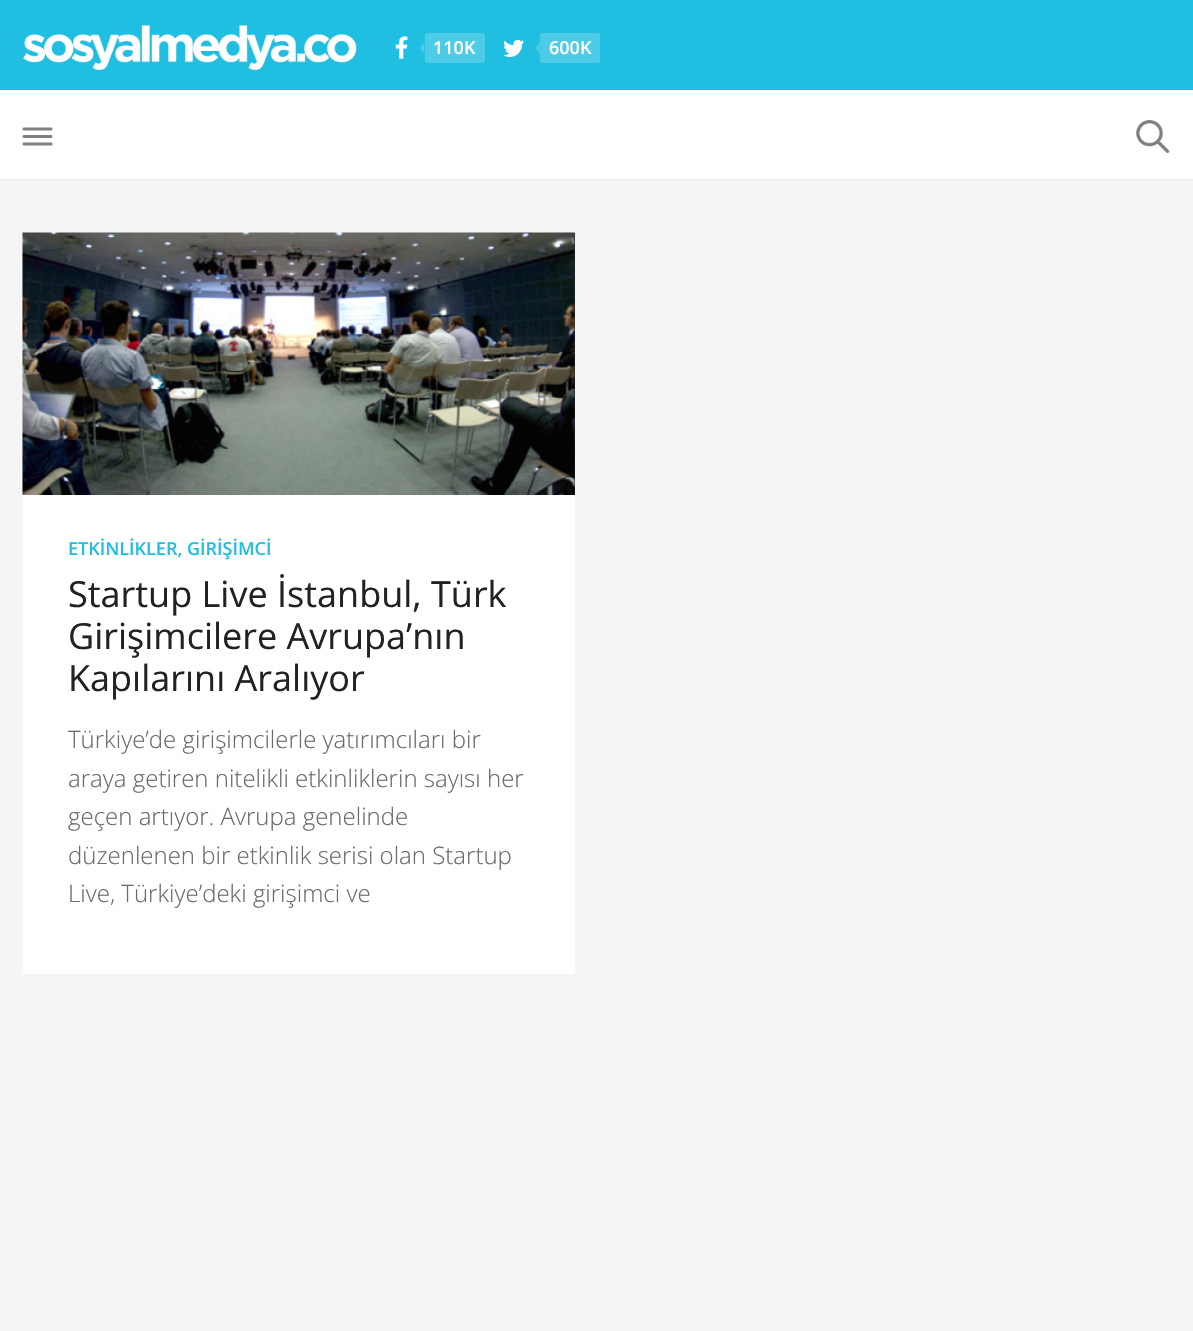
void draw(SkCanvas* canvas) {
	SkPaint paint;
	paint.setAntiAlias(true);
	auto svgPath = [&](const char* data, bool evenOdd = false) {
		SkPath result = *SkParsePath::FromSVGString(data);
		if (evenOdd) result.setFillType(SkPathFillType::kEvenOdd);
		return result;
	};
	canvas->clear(0xfff5f5f5);
	paint.setColor(0xff20bee1);
	canvas->drawRect(SkRect::MakeXYWH(0, 0, 1193, 90), paint);
	canvas->drawImageRect(SkImages::DeferredFromEncodedData(SkData::MakeFromFileName("img1.png")), SkRect::MakeXYWH(23, 25, 334, 46), SkSamplingOptions());
	canvas->drawImageRect(SkImages::DeferredFromEncodedData(SkData::MakeFromFileName("img2.png")), SkRect::MakeXYWH(395, 36, 13, 23), SkSamplingOptions());
	paint.setColor(0xff4dcce7);
	canvas->drawRoundRect(SkRect::MakeXYWH(425, 33, 60, 30), 3, 3, paint);
	canvas->drawPath(svgPath("M424.5 42V54L420 48Z"), paint);
	SkFont f1(fontMgr->matchFamilyStyle("Open Sans", SkFontStyle(600, SkFontStyle::kNormal_Width, SkFontStyle::kUpright_Slant)), 18);
	f1.setSubpixel(true);
	paint.setColor(0xffffffff);
	canvas->drawString("110K", 433, 54, f1, paint);
	canvas->drawImageRect(SkImages::DeferredFromEncodedData(SkData::MakeFromFileName("img3.png")), SkRect::MakeXYWH(503, 39, 21, 18), SkSamplingOptions());
	paint.setColor(0xff4dcce7);
	canvas->drawRoundRect(SkRect::MakeXYWH(540, 33, 60, 30), 3, 3, paint);
	canvas->drawPath(svgPath("M540 42V54L535.5 48Z"), paint);
	paint.setColor(0xffffffff);
	canvas->drawString("600K", 549, 54, f1, paint);
	canvas->drawRect(SkRect::MakeXYWH(0, 90, 1193, 89), paint);
	paint.setColor(0xffefefef);
	canvas->drawRect(SkRect::MakeXYWH(0, 179, 1193, 2), paint);
	canvas->drawImageRect(SkImages::DeferredFromEncodedData(SkData::MakeFromFileName("img4.png")), SkRect::MakeXYWH(22, 127, 31, 19), SkSamplingOptions());
	canvas->drawImageRect(SkImages::DeferredFromEncodedData(SkData::MakeFromFileName("img5.png")), SkRect::MakeXYWH(1136, 120, 34, 33), SkSamplingOptions());
	paint.setColor(0xffffffff);
	canvas->drawRect(SkRect::MakeXYWH(23, 495, 552, 479), paint);
	paint.setColor(0xff222222);
	canvas->drawRect(SkRect::MakeXYWH(574, 233, 1, 262), paint);
	canvas->drawImageRect(SkImages::DeferredFromEncodedData(SkData::MakeFromFileName("img6.png")), SkRect::MakeXYWH(22, 232, 553, 263), SkSamplingOptions());
	paint.setColor(0xff20bee1);
	canvas->drawString("ETKİNLİKLER, GİRİŞİMCİ", 68, 555, f1, paint);
	SkFont f2(fontMgr->matchFamilyStyle("Open Sans", SkFontStyle::Normal()), 36);
	f2.setSubpixel(true);
	paint.setColor(0xff222222);
	canvas->drawString("Startup Live İstanbul, Türk", 68, 607, f2, paint);
	canvas->drawString("Girişimcilere Avrupa’nın", 68, 649, f2, paint);
	canvas->drawString("Kapılarını Aralıyor", 68, 691, f2, paint);
	SkFont f3(fontMgr->matchFamilyStyle("Open Sans", SkFontStyle(300, SkFontStyle::kNormal_Width, SkFontStyle::kUpright_Slant)), 24);
	f3.setSubpixel(true);
	paint.setColor(0xff6a6a6a);
	canvas->drawString("Türkiye’de girişimcilerle yatırımcıları bir", 68, 748, f3, paint);
	canvas->drawString("araya getiren nitelikli etkinliklerin sayısı her", 68, 787, f3, paint);
	canvas->drawString("geçen artıyor. Avrupa genelinde", 68, 825, f3, paint);
	canvas->drawString("düzenlenen bir etkinlik serisi olan Startup", 68, 864, f3, paint);
	canvas->drawString("Live, Türkiye’deki girişimci ve", 68, 902, f3, paint);
}
